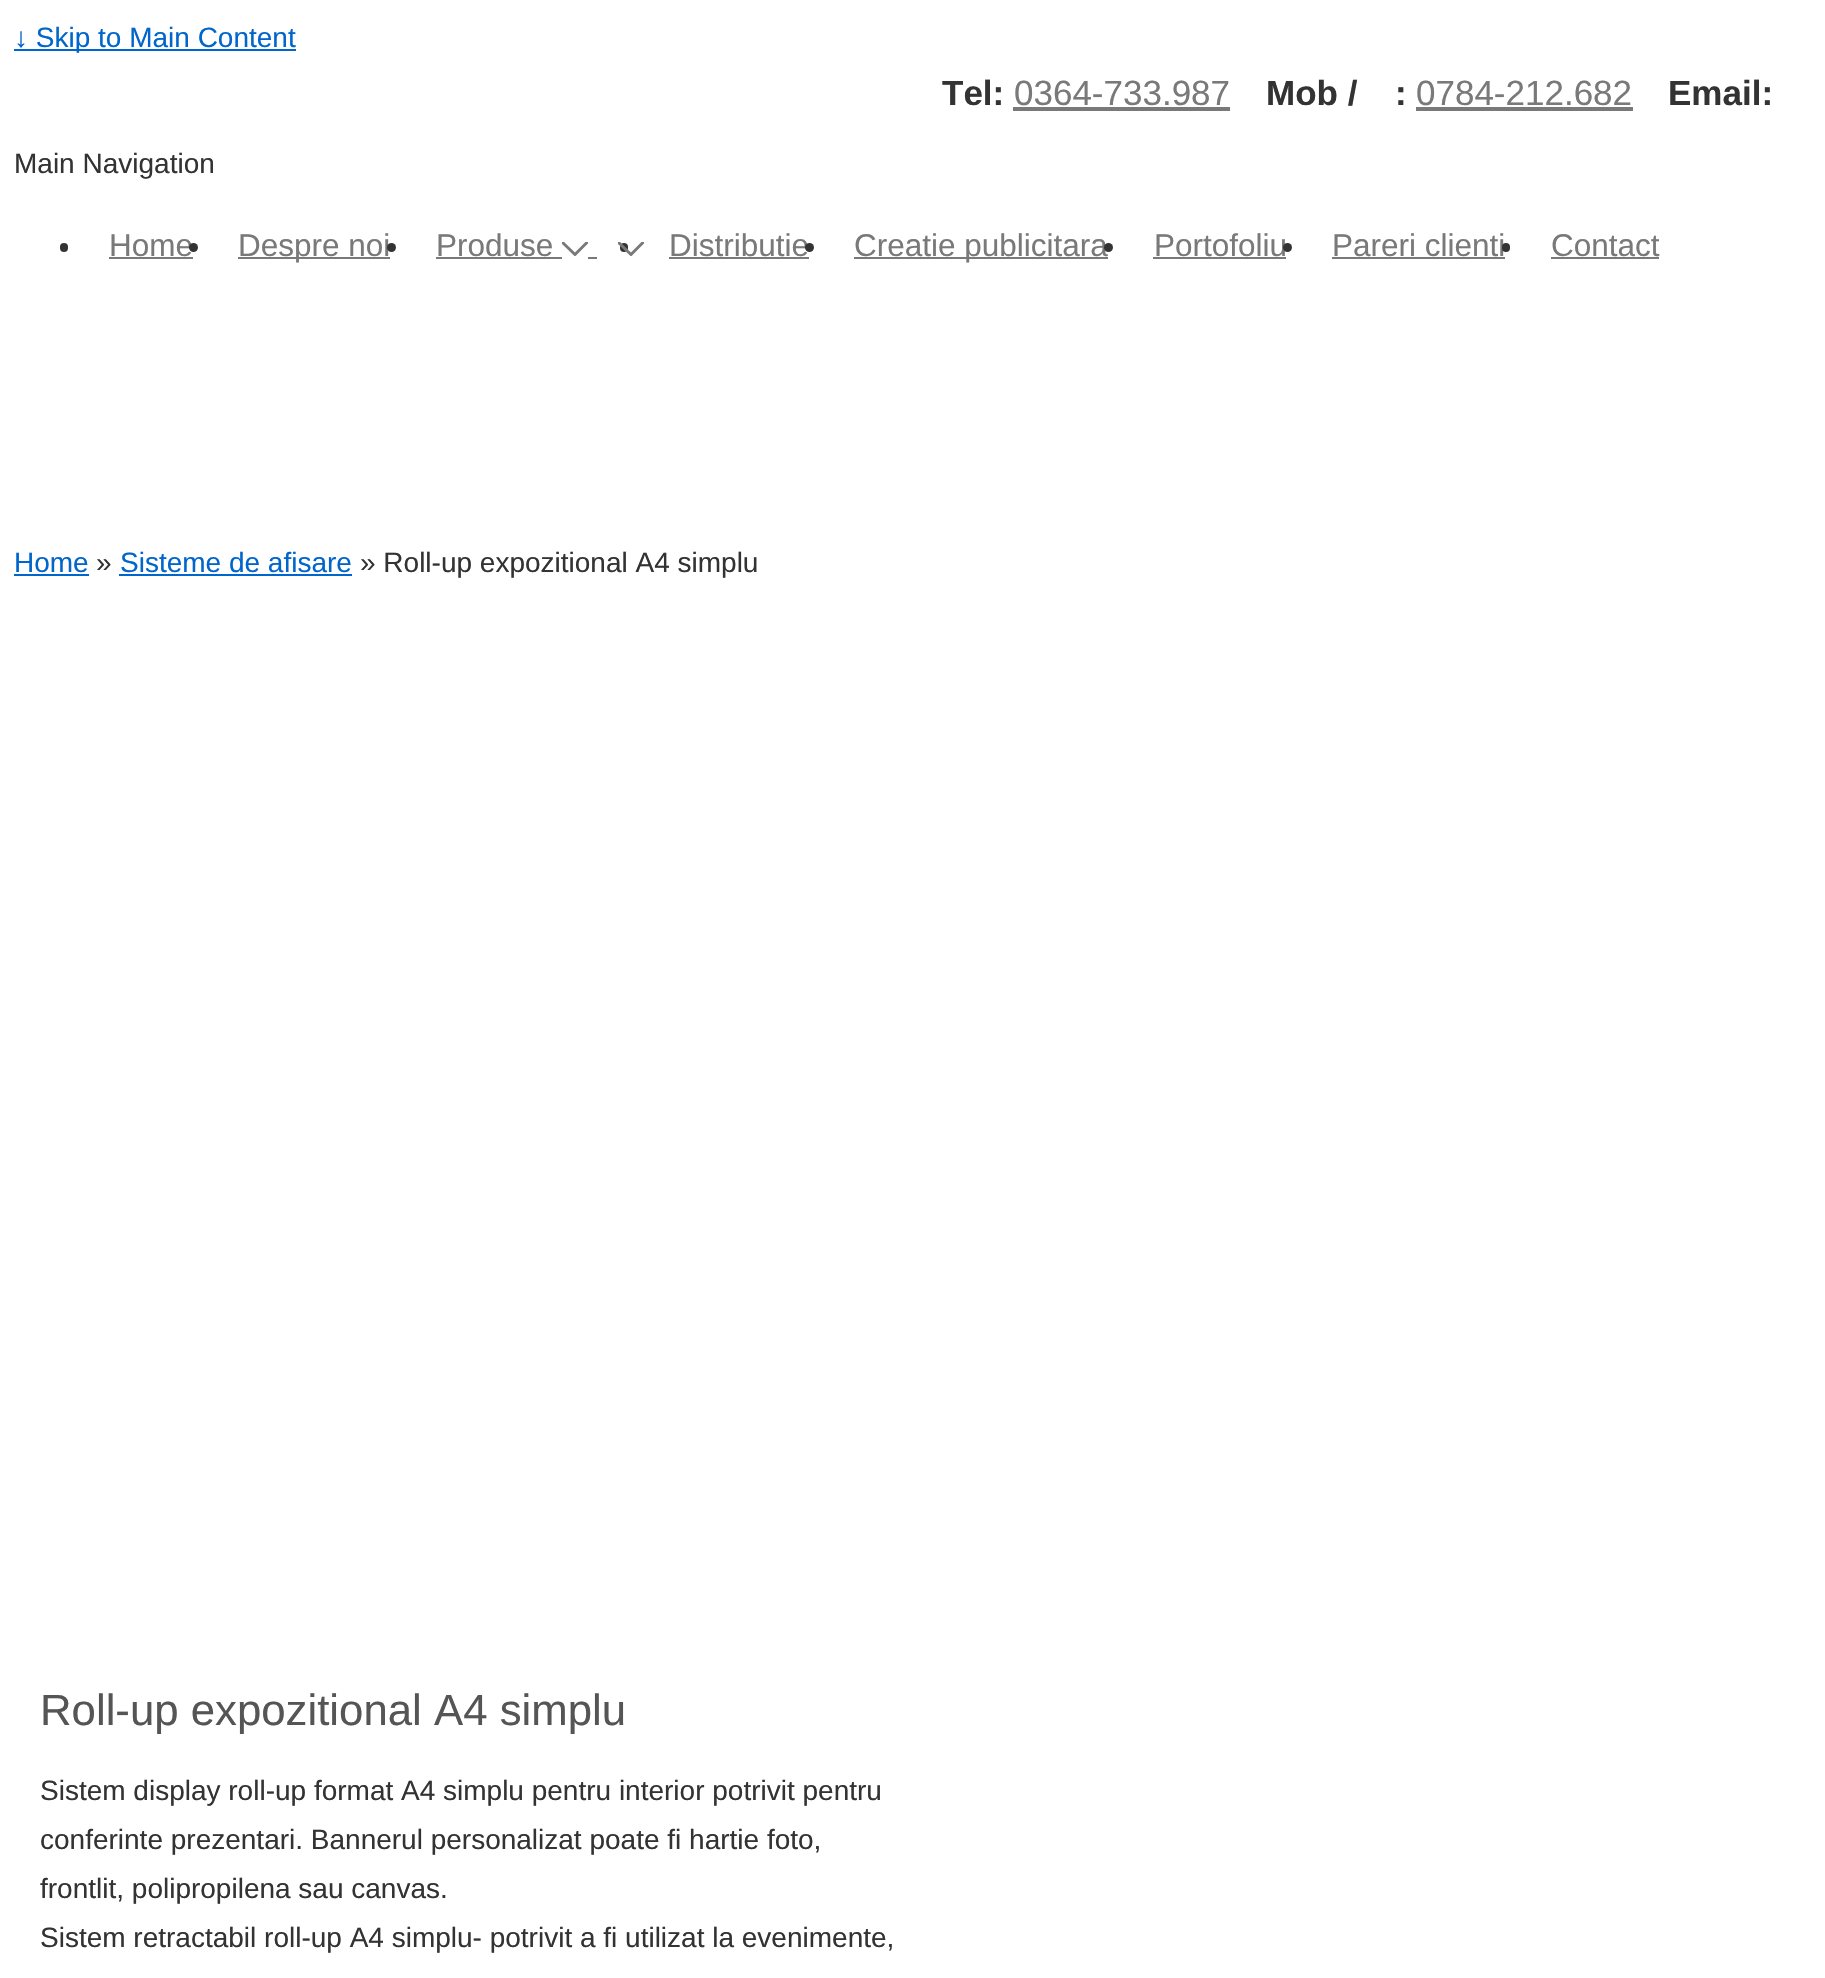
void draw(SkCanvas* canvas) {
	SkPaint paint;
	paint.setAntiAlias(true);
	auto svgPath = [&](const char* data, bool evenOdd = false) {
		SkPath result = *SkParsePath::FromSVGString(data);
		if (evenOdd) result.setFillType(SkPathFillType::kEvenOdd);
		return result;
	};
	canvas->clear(0xffffffff);
	paint.setColor(0xff0066cc);
	canvas->drawRect(SkRect::MakeXYWH(14, 49, 282, 2), paint);
	SkFont f1(fontMgr->matchFamilyStyle("Liberation Sans", SkFontStyle::Normal()), 28);
	f1.setSubpixel(true);
	canvas->drawString("↓ Skip to Main Content", 14, 47, f1, paint);
	SkFont f2(fontMgr->matchFamilyStyle("Liberation Sans", SkFontStyle::Bold()), 35);
	f2.setSubpixel(true);
	paint.setColor(0xff333333);
	canvas->drawString("Tel:", 942, 105, f2, paint);
	SkFont f3(fontMgr->matchFamilyStyle("Liberation Sans", SkFontStyle::Normal()), 35);
	f3.setSubpixel(true);
	paint.setColor(0xff797979);
	canvas->drawString("0364-733.987", 1014, 105, f3, paint);
	canvas->drawRect(SkRect::MakeXYWH(1013, 107, 217, 4), paint);
	paint.setColor(0xff333333);
	canvas->drawString("Mob /", 1266, 105, f2, paint);
	canvas->drawString(":", 1395, 105, f2, paint);
	paint.setColor(0xff797979);
	canvas->drawString("0784-212.682", 1416, 105, f3, paint);
	canvas->drawRect(SkRect::MakeXYWH(1416, 107, 217, 4), paint);
	paint.setColor(0xff333333);
	canvas->drawString("Email:", 1668, 105, f2, paint);
	canvas->drawString("Main Navigation", 14, 173, f1, paint);
	canvas->drawRoundRect(SkRect::MakeXYWH(60, 243, 8, 9), 4, 4, paint);
	SkFont f4(fontMgr->matchFamilyStyle("Liberation Sans", SkFontStyle::Normal()), 31.5);
	f4.setSubpixel(true);
	paint.setColor(0xff797979);
	canvas->drawString("Home", 109, 256, f4, paint);
	canvas->drawRect(SkRect::MakeXYWH(109, 257, 84, 2), paint);
	paint.setColor(0xff333333);
	canvas->drawCircle(193.5, 247.5, 4.5, paint);
	paint.setColor(0xff797979);
	canvas->drawRect(SkRect::MakeXYWH(238, 257, 152, 2), paint);
	canvas->drawString("Despre noi", 238, 256, f4, paint);
	paint.setColor(0xff333333);
	canvas->drawCircle(391.5, 247.5, 4.5, paint);
	paint.setColor(0xff797979);
	canvas->drawString("Produse", 436, 256, f4, paint);
	canvas->drawRect(SkRect::MakeXYWH(436, 257, 126, 2), paint);
	canvas->drawRect(SkRect::MakeXYWH(588, 257, 9, 2), paint);
	canvas->save();
	canvas->clipRect(SkRect::MakeXYWH(562, 242, 26, 14));
	paint.setStroke(true);
	paint.setStrokeWidth(2.9);
	paint.setStrokeCap(SkPaint::kRound_Cap);
	canvas->drawPath(svgPath("M562.5 242.5L575 254.5L587 242.5"), paint);
	canvas->restore();
	paint.setStroke(false);
	paint.setColor(0xff333333);
	canvas->drawRoundRect(SkRect::MakeXYWH(620, 243, 8, 9), 4, 4, paint);
	canvas->save();
	canvas->clipRect(SkRect::MakeXYWH(618, 242, 26, 14));
	paint.setStroke(true);
	paint.setColor(0xff797979);
	canvas->drawPath(svgPath("M618.5 242.5L631 254.5L643 242.5"), paint);
	canvas->restore();
	paint.setStroke(false);
	canvas->drawString("Distributie", 669, 256, f4, paint);
	canvas->drawRect(SkRect::MakeXYWH(669, 257, 140, 2), paint);
	paint.setColor(0xff333333);
	canvas->drawCircle(809.5, 247.5, 4.5, paint);
	paint.setColor(0xff797979);
	canvas->drawRect(SkRect::MakeXYWH(854, 257, 254, 2), paint);
	canvas->drawString("Creatie publicitara", 854, 256, f4, paint);
	paint.setColor(0xff333333);
	canvas->drawCircle(1108.5, 247.5, 4.5, paint);
	paint.setColor(0xff797979);
	canvas->drawString("Portofoliu", 1154, 256, f4, paint);
	canvas->drawRect(SkRect::MakeXYWH(1153, 257, 133, 2), paint);
	paint.setColor(0xff333333);
	canvas->drawCircle(1287.5, 247.5, 4.5, paint);
	paint.setColor(0xff797979);
	canvas->drawString("Pareri clienti", 1332, 256, f4, paint);
	canvas->drawRect(SkRect::MakeXYWH(1332, 257, 173, 2), paint);
	paint.setColor(0xff333333);
	canvas->drawRoundRect(SkRect::MakeXYWH(1502, 243, 8, 9), 4, 4, paint);
	paint.setColor(0xff797979);
	canvas->drawString("Contact", 1551, 256, f4, paint);
	canvas->drawRect(SkRect::MakeXYWH(1551, 257, 108, 2), paint);
	paint.setColor(0xff0066cc);
	canvas->drawString("Home", 14, 572, f1, paint);
	canvas->drawRect(SkRect::MakeXYWH(14, 574, 75, 2), paint);
	paint.setColor(0xff333333);
	canvas->drawString("»", 96, 572, f1, paint);
	paint.setColor(0xff0066cc);
	canvas->drawString("Sisteme de afisare", 120, 572, f1, paint);
	canvas->drawRect(SkRect::MakeXYWH(119, 574, 233, 2), paint);
	paint.setColor(0xff333333);
	canvas->drawString("» Roll-up expozitional A4 simplu", 360, 572, f1, paint);
	SkFont f5(fontMgr->matchFamilyStyle("Liberation Sans", SkFontStyle::Normal()), 43.75);
	f5.setSubpixel(true);
	paint.setColor(0xff555555);
	canvas->drawString("Roll-up expozitional A4 simplu", 40, 1725, f5, paint);
	paint.setColor(0xff333333);
	canvas->drawString("Sistem display roll-up format A4 simplu pentru interior potrivit pentru", 40, 1800, f1, paint);
	canvas->drawString("conferinte prezentari. Bannerul personalizat poate fi hartie foto,", 40, 1849, f1, paint);
	canvas->drawString("frontlit, polipropilena sau canvas.", 40, 1898, f1, paint);
	canvas->drawString("Sistem retractabil roll-up A4 simplu- potrivit a fi utilizat la evenimente,", 40, 1947, f1, paint);
}
